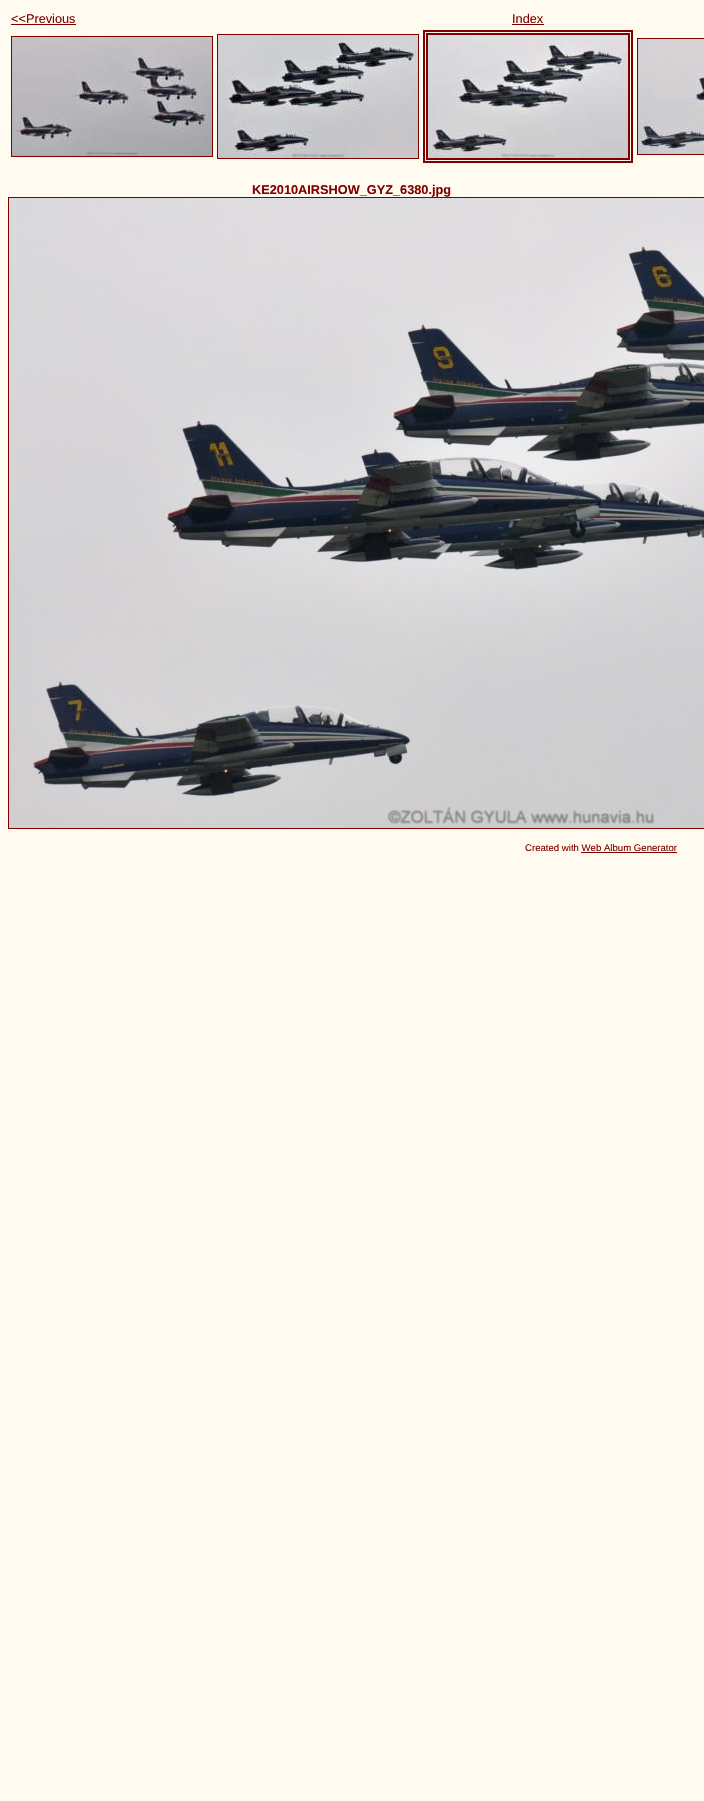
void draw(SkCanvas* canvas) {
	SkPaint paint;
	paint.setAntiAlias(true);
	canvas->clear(0xfffffbf0);
	SkFont f1(fontMgr->matchFamilyStyle("Liberation Sans", SkFontStyle::Normal()), 12.75);
	f1.setSubpixel(true);
	paint.setColor(0xff800000);
	canvas->drawString("<<Previous", 11, 23, f1, paint);
	canvas->drawRect(SkRect::MakeXYWH(11, 24, 65, 1), paint);
	canvas->drawString("Index", 512, 23, f1, paint);
	canvas->drawRect(SkRect::MakeXYWH(512, 24, 32, 1), paint);
	paint.setStroke(true);
	paint.setStrokeWidth(1);
	canvas->drawRect(SkRect::MakeXYWH(11.5, 36.5, 201, 120), paint);
	canvas->drawImageRect(SkImages::DeferredFromEncodedData(SkData::MakeFromFileName("img1.png")), SkRect::MakeXYWH(12, 37, 200, 119), SkSamplingOptions());
	canvas->drawRect(SkRect::MakeXYWH(217.5, 34.5, 201, 124), paint);
	canvas->drawImageRect(SkImages::DeferredFromEncodedData(SkData::MakeFromFileName("img2.png")), SkRect::MakeXYWH(218, 35, 200, 123), SkSamplingOptions());
	paint.setStrokeWidth(2);
	canvas->drawRect(SkRect::MakeXYWH(424, 31, 208, 131), paint);
	canvas->drawRect(SkRect::MakeXYWH(427, 34, 202, 125), paint);
	canvas->drawImageRect(SkImages::DeferredFromEncodedData(SkData::MakeFromFileName("img3.png")), SkRect::MakeXYWH(428, 35, 200, 123), SkSamplingOptions());
	paint.setStrokeWidth(1);
	canvas->drawRect(SkRect::MakeXYWH(637.5, 38.5, 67, 116), paint);
	canvas->drawImageRect(SkImages::DeferredFromEncodedData(SkData::MakeFromFileName("img4.png")), SkRect::MakeXYWH(638, 39, 66, 115), SkSamplingOptions());
	SkFont f2(fontMgr->matchFamilyStyle("Liberation Sans", SkFontStyle::Bold()), 12.75);
	f2.setSubpixel(true);
	paint.setStroke(false);
	canvas->drawString("KE2010AIRSHOW_GYZ_6380.jpg", 252, 194, f2, paint);
	paint.setStroke(true);
	canvas->drawRect(SkRect::MakeXYWH(8.5, 197.5, 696, 631), paint);
	canvas->drawImageRect(SkImages::DeferredFromEncodedData(SkData::MakeFromFileName("img5.png")), SkRect::MakeXYWH(9, 198, 695, 630), SkSamplingOptions());
	SkFont f3(fontMgr->matchFamilyStyle("Liberation Sans", SkFontStyle::Normal()), 9.6);
	f3.setSubpixel(true);
	paint.setStroke(false);
	canvas->drawString("Created with Web Album Generator", 525, 851, f3, paint);
	canvas->drawRect(SkRect::MakeXYWH(581, 852, 96, 1), paint);
}
